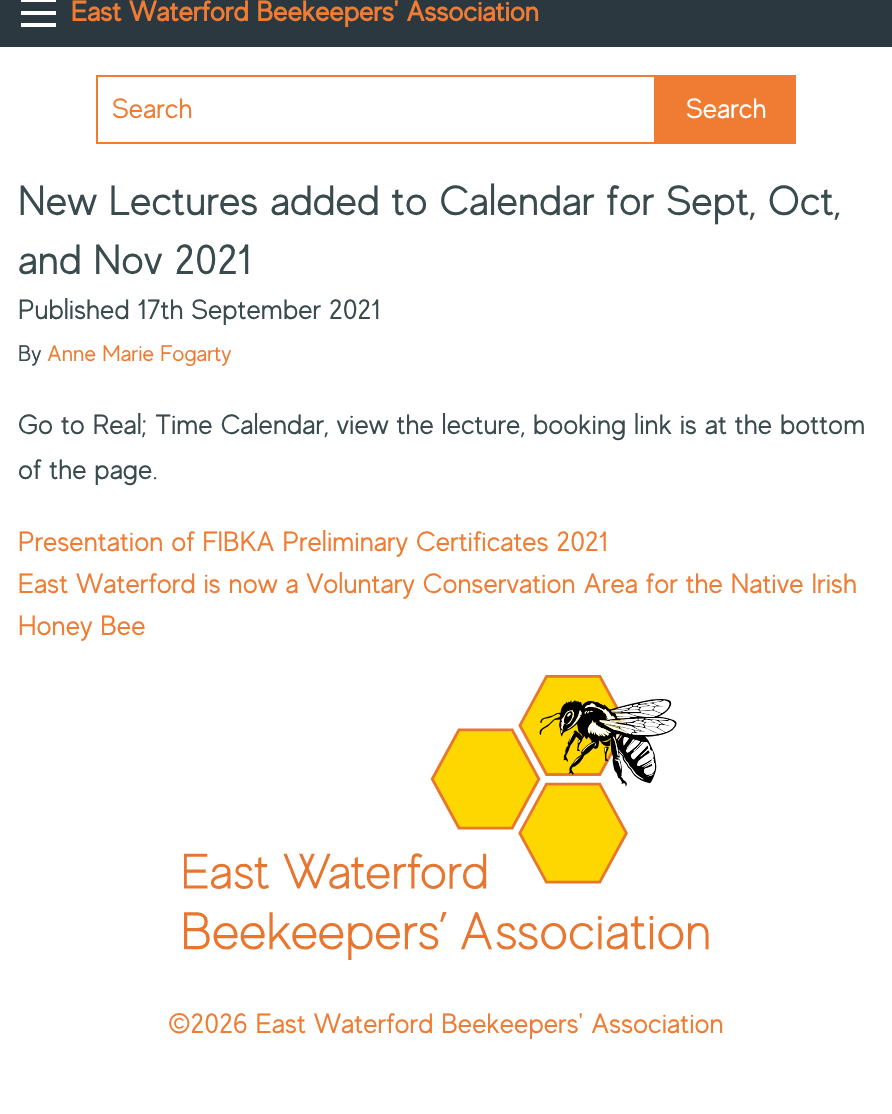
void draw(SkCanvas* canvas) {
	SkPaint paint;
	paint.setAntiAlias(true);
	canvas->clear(0xffffffff);
	paint.setColor(0xff2c3840);
	canvas->drawRect(SkRect::MakeXYWH(0, 0, 892, 47), paint);
	paint.setColor(0xfffefefe);
	canvas->drawRect(SkRect::MakeXYWH(21, 23, 35, 4), paint);
	canvas->drawRect(SkRect::MakeXYWH(21, 11, 35, 4), paint);
	canvas->drawRect(SkRect::MakeXYWH(21, 0, 35, 2), paint);
	SkFont f1(fontMgr->matchFamilyStyle("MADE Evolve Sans", SkFontStyle::Bold()), 28);
	f1.setSubpixel(true);
	paint.setColor(0xffef7c32);
	canvas->drawString("East Waterford Beekeepers' Association", 71, 21, f1, paint);
	paint.setStroke(true);
	paint.setStrokeWidth(2);
	canvas->drawRect(SkRect::MakeXYWH(97, 76, 558, 67), paint);
	SkFont f2(fontMgr->matchFamilyStyle("MADE Evolve Sans", SkFontStyle::Normal()), 28);
	f2.setSubpixel(true);
	paint.setStroke(false);
	canvas->drawString("Search", 112, 118, f2, paint);
	canvas->drawRect(SkRect::MakeXYWH(656, 75, 140, 69), paint);
	paint.setColor(0xfffefefe);
	canvas->drawString("Search", 686, 118, f2, paint);
	SkFont f3(fontMgr->matchFamilyStyle("MADE Evolve Sans", SkFontStyle::Normal()), 42);
	f3.setSubpixel(true);
	paint.setColor(0xff3a4b4d);
	canvas->drawString("New Lectures added to Calendar for Sept, Oct,", 18, 215, f3, paint);
	canvas->drawString("and Nov 2021", 18, 274, f3, paint);
	canvas->drawString("Published 17th September 2021", 18, 319, f2, paint);
	SkFont f4(fontMgr->matchFamilyStyle("MADE Evolve Sans", SkFontStyle::Normal()), 22.5);
	f4.setSubpixel(true);
	canvas->drawString("By", 18, 361, f4, paint);
	paint.setColor(0xffef7c32);
	canvas->drawString("Anne Marie Fogarty", 47, 361, f4, paint);
	paint.setColor(0xff3a4b4d);
	canvas->drawString("Go to Real; Time Calendar, view the lecture, booking link is at the bottom", 18, 434, f2, paint);
	canvas->drawString("of the page.", 18, 479, f2, paint);
	paint.setColor(0xffef7c32);
	canvas->drawString("Presentation of FIBKA Preliminary Certificates 2021", 18, 551, f2, paint);
	canvas->drawString("East Waterford is now a Voluntary Conservation Area for the Native Irish", 18, 593, f2, paint);
	canvas->drawString("Honey Bee", 18, 635, f2, paint);
	canvas->drawImageRect(SkImages::DeferredFromEncodedData(SkData::MakeFromFileName("img1.png")), SkRect::MakeXYWH(184, 675, 525, 285), SkSamplingOptions());
	canvas->drawString("©2026 East Waterford Beekeepers' Association", 168, 1033, f2, paint);
}
